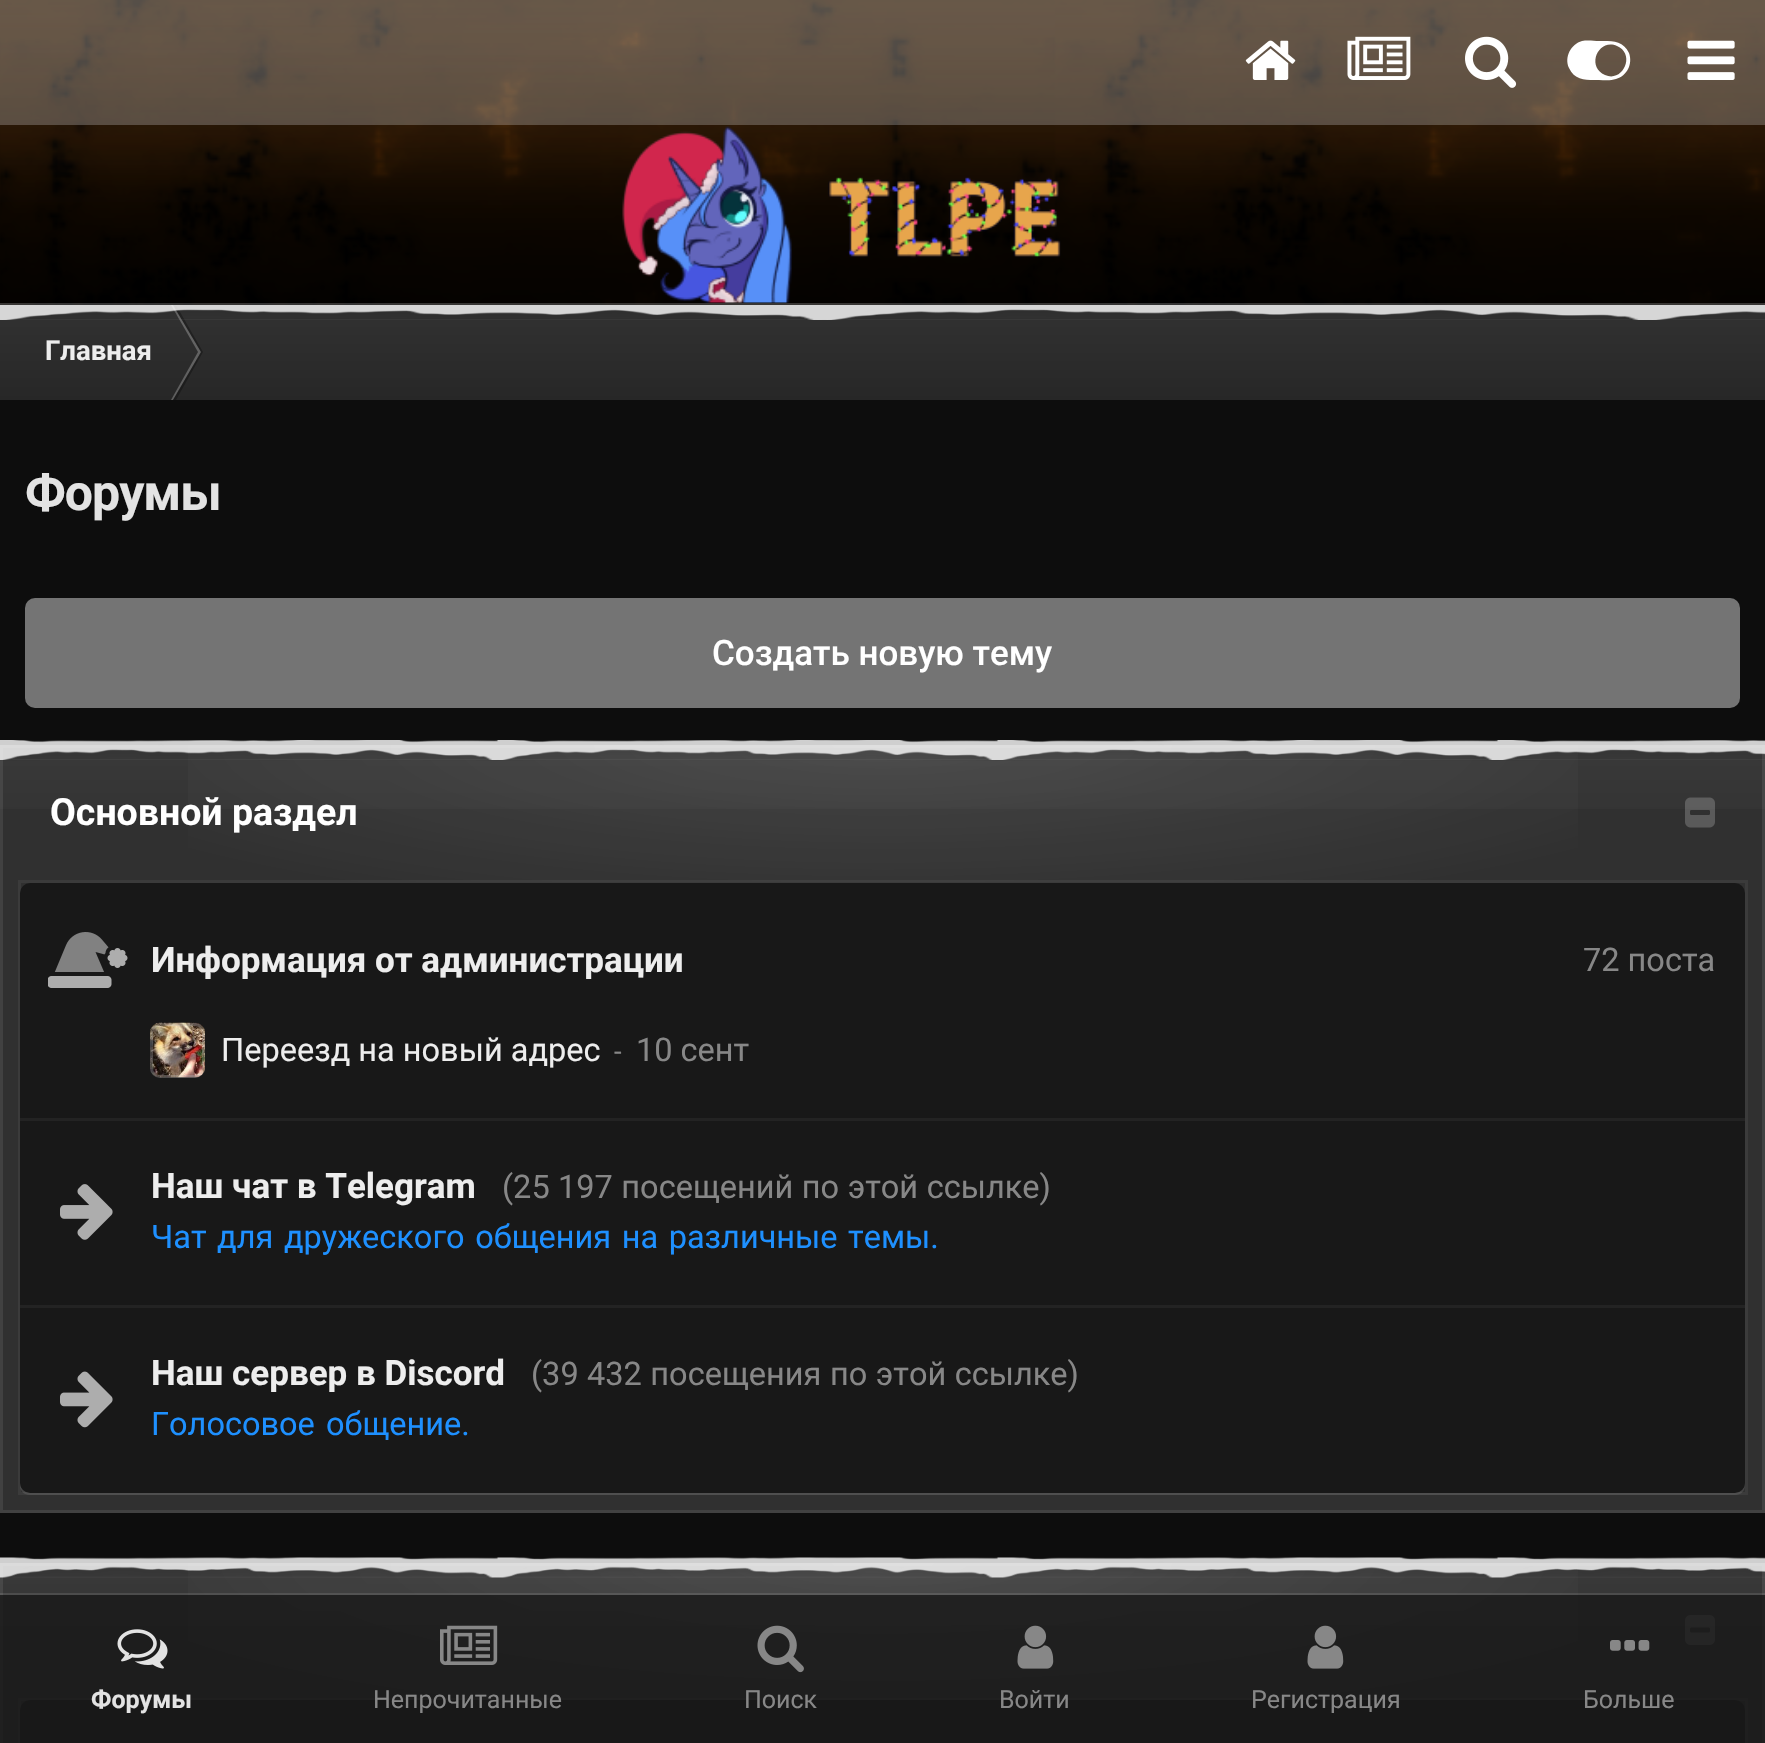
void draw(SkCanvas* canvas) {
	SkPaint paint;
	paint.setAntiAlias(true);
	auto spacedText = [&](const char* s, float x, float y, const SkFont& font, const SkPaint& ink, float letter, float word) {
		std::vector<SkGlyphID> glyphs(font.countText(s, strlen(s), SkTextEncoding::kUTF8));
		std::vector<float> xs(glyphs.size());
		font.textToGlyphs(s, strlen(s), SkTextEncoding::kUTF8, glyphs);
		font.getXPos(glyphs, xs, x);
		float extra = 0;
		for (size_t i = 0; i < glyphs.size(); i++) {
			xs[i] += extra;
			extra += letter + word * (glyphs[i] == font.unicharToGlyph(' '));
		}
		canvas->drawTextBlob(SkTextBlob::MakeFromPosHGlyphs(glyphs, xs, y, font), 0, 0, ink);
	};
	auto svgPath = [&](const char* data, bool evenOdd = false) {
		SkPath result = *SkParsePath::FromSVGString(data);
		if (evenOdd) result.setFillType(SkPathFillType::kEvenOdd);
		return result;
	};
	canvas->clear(0xff0d0d0d);
	canvas->drawImageRect(SkImages::DeferredFromEncodedData(SkData::MakeFromFileName("img1.png")), SkRect::MakeXYWH(0, 0, 1765, 305), SkSamplingOptions());
	paint.setColor(0x4dc8c8c8);
	canvas->drawRect(SkRect::MakeXYWH(0, 0, 1765, 125), paint);
	canvas->drawImageRect(SkImages::DeferredFromEncodedData(SkData::MakeFromFileName("img2.png")), SkRect::MakeXYWH(1245, 40, 51, 40), SkSamplingOptions());
	canvas->drawImageRect(SkImages::DeferredFromEncodedData(SkData::MakeFromFileName("img3.png")), SkRect::MakeXYWH(1347, 36, 64, 44), SkSamplingOptions());
	canvas->drawImageRect(SkImages::DeferredFromEncodedData(SkData::MakeFromFileName("img4.png")), SkRect::MakeXYWH(1465, 36, 52, 52), SkSamplingOptions());
	paint.setColor(0xffffffff);
	canvas->drawPath(svgPath("M1569 68C1564 57 1571 44 1582 41C1588 40 1594 41 1599 41C1611 41 1623 40 1629 53C1633 64 1627 76 1616 79C1610 81 1604 80 1599 80C1587 80 1575 81 1569 68ZM1605 75C1623 83 1636 54 1617 46C1598 38 1586 67 1605 75Z"), paint);
	canvas->drawImageRect(SkImages::DeferredFromEncodedData(SkData::MakeFromFileName("img5.png")), SkRect::MakeXYWH(1687, 40, 48, 40), SkSamplingOptions());
	paint.setColor(0x33ffffff);
	canvas->drawRect(SkRect::MakeXYWH(0, 303, 1765, 2), paint);
	canvas->drawImageRect(SkImages::DeferredFromEncodedData(SkData::MakeFromFileName("img6.png")), SkRect::MakeXYWH(622, 126, 439, 177), SkSamplingOptions());
	{
		const SkColor colors[] = {0xff323232, 0xff272727};
		const float stops[] = {0, 1};
		const SkPoint ends[] = {{883, 305}, {883, 400}};
		paint.setShader(SkGradientShader::MakeLinear(ends, colors, stops, 2, SkTileMode::kClamp));
		paint.setAlpha(255);
	}
	canvas->drawRect(SkRect::MakeXYWH(0, 305, 1765, 95), paint);
	paint.setShader(nullptr);
	paint.setColor(0x40ffffff);
	canvas->drawPath(svgPath("M171 305H173L201 352H198Z"), paint);
	paint.setColor(0x4d000000);
	canvas->drawPath(svgPath("M173 305H176L203 352H201Z"), paint);
	canvas->drawImageRect(SkImages::DeferredFromEncodedData(SkData::MakeFromFileName("img7.png")), SkRect::MakeXYWH(0, 305, 1765, 15), SkSamplingOptions());
	SkFont f1(fontMgr->matchFamilyStyle("Roboto", SkFontStyle::Bold()), 27.5);
	f1.setSubpixel(true);
	paint.setColor(0xffededed);
	canvas->drawString("Главная", 45, 360, f1, paint);
	paint.setColor(0x40ffffff);
	canvas->drawPath(svgPath("M171 400H173L201 352H198Z"), paint);
	paint.setColor(0x4d000000);
	canvas->drawPath(svgPath("M173 400H176L203 352H201Z"), paint);
	SkFont f2(fontMgr->matchFamilyStyle("Roboto", SkFontStyle::Bold()), 50);
	f2.setSubpixel(true);
	paint.setColor(0xffe3e3e3);
	spacedText("Форумы", 25, 510, f2, paint, -1, 0);
	paint.setColor(0xff747474);
	canvas->drawRoundRect(SkRect::MakeXYWH(25, 598, 1715, 110), 10, 10, paint);
	SkFont f3(fontMgr->matchFamilyStyle("Roboto", SkFontStyle(500, SkFontStyle::kNormal_Width, SkFontStyle::kUpright_Slant)), 35);
	f3.setSubpixel(true);
	paint.setColor(0xffffffff);
	canvas->drawString("Создать новую тему", 712, 665, f3, paint);
	paint.setColor(0xff303030);
	canvas->drawRect(SkRect::MakeXYWH(0, 745, 1765, 768), paint);
	paint.setStroke(true);
	paint.setStrokeWidth(3);
	paint.setColor(0x14ffffff);
	canvas->drawRect(SkRect::MakeXYWH(1.5, 746.5, 1762, 765), paint);
	paint.setStroke(false);
	{
		const SkColor colors[] = {0x1affffff, 0x00ffffff};
		const float stops[] = {0, 1};
		SkMatrix m = SkMatrix::Translate(883, 745).preScale(883, 175);
		paint.setShader(SkGradientShader::MakeRadial({0, 0}, 1, colors, stops, 2, SkTileMode::kClamp, 0, &m));
		paint.setAlpha(255);
	}
	canvas->drawRect(SkRect::MakeXYWH(188, 745, 1390, 137), paint);
	{
		const SkColor colors[] = {0x0affffff, 0x00ffffff};
		const float stops[] = {0, 1};
		const SkPoint ends[] = {{883, 745}, {883, 883}};
		paint.setShader(SkGradientShader::MakeLinear(ends, colors, stops, 2, SkTileMode::kClamp));
		paint.setAlpha(255);
	}
	canvas->drawRect(SkRect::MakeXYWH(0, 745, 1765, 64), paint);
	canvas->drawImageRect(SkImages::DeferredFromEncodedData(SkData::MakeFromFileName("img8.png")), SkRect::MakeXYWH(0, 740, 1765, 21), SkSamplingOptions());
	SkFont f4(fontMgr->matchFamilyStyle("Roboto", SkFontStyle::Bold()), 37.5);
	f4.setSubpixel(true);
	paint.setShader(nullptr);
	paint.setColor(0xffffffff);
	canvas->drawString("Основной раздел", 50, 825, f4, paint);
	canvas->drawImageRect(SkImages::DeferredFromEncodedData(SkData::MakeFromFileName("img9.png")), SkRect::MakeXYWH(1685, 797, 30, 31), SkSamplingOptions());
	paint.setColor(0x1affffff);
	canvas->drawPath(svgPath("M20 1482V1485C20 1491 24 1495 30 1495H1735C1741 1495 1745 1491 1745 1485V1482C1745 1488 1741 1492 1735 1492H30C24 1492 20 1488 20 1482Z"), paint);
	paint.setStroke(true);
	paint.setColor(0x0dffffff);
	canvas->drawRect(SkRect::MakeXYWH(19.5, 881.5, 1727, 612), paint);
	paint.setStroke(false);
	paint.setColor(0xff181818);
	canvas->drawRoundRect(SkRect::MakeXYWH(20, 883, 1725, 610), 10, 10, paint);
	paint.setColor(0xff232323);
	canvas->drawRect(SkRect::MakeXYWH(20, 1118, 1725, 3), paint);
	canvas->drawImageRect(SkImages::DeferredFromEncodedData(SkData::MakeFromFileName("img10.png")), SkRect::MakeXYWH(48, 932, 80, 56), SkSamplingOptions());
	SkFont f5(fontMgr->matchFamilyStyle("Roboto", SkFontStyle::Bold()), 35);
	f5.setSubpixel(true);
	paint.setColor(0xffededed);
	canvas->drawString("Информация от администрации", 151, 972, f5, paint);
	SkFont f6(fontMgr->matchFamilyStyle("Roboto", SkFontStyle::Normal()), 32.5);
	f6.setSubpixel(true);
	paint.setColor(0xff878787);
	canvas->drawString("72 поста", 1583, 971, f6, paint);
	canvas->drawImageRect(SkImages::DeferredFromEncodedData(SkData::MakeFromFileName("img11.png")), SkRect::MakeXYWH(150, 1022, 55, 56), SkSamplingOptions());
	paint.setStroke(true);
	paint.setColor(0x4dbfbfbf);
	canvas->drawRoundRect(SkRect::MakeXYWH(151.5, 1024.5, 52, 52), 8.5, 8.5, paint);
	paint.setStroke(false);
	paint.setColor(0xffededed);
	canvas->drawString("Переезд на новый адрес", 221, 1061, f6, paint);
	SkFont f7(fontMgr->matchFamilyStyle("Roboto", SkFontStyle::Normal()), 27.5);
	f7.setSubpixel(true);
	paint.setColor(0xff878787);
	canvas->drawString("-", 614, 1061, f7, paint);
	canvas->drawString("10 сент", 636, 1061, f6, paint);
	paint.setColor(0xff232323);
	canvas->drawRect(SkRect::MakeXYWH(20, 1305, 1725, 3), paint);
	canvas->drawImageRect(SkImages::DeferredFromEncodedData(SkData::MakeFromFileName("img12.png")), SkRect::MakeXYWH(60, 1184, 53, 56), SkSamplingOptions());
	paint.setColor(0xffededed);
	canvas->drawString("Наш чат в Telegram", 151, 1198, f5, paint);
	paint.setColor(0xff878787);
	canvas->drawString("(25", 502, 1198, f6, paint);
	spacedText("197 посещений по этой ссылке)", 558, 1198, f6, paint, 0, 0.5);
	paint.setColor(0xff1e90ff);
	spacedText("Чат для дружеского общения на различные темы.", 151, 1248, f6, paint, 0, 2.5);
	canvas->drawImageRect(SkImages::DeferredFromEncodedData(SkData::MakeFromFileName("img13.png")), SkRect::MakeXYWH(60, 1371, 53, 57), SkSamplingOptions());
	paint.setColor(0xffededed);
	canvas->drawString("Наш сервер в Discord", 151, 1385, f5, paint);
	paint.setColor(0xff878787);
	canvas->drawString("(39", 531, 1385, f6, paint);
	spacedText("432 посещения по этой ссылке)", 587, 1385, f6, paint, 0, 0.5);
	paint.setColor(0xff1e90ff);
	spacedText("Голосовое общение.", 151, 1435, f6, paint, 0, 3);
	paint.setColor(0xff303030);
	canvas->drawRect(SkRect::MakeXYWH(0, 1563, 1765, 180), paint);
	paint.setStroke(true);
	paint.setColor(0x14ffffff);
	canvas->drawRect(SkRect::MakeXYWH(1.5, 1564.5, 1762, 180), paint);
	paint.setStroke(false);
	{
		const SkColor colors[] = {0x1affffff, 0x00ffffff};
		const float stops[] = {0, 1};
		SkMatrix m = SkMatrix::Translate(883, 1563).preScale(883, 175);
		paint.setShader(SkGradientShader::MakeRadial({0, 0}, 1, colors, stops, 2, SkTileMode::kClamp, 0, &m));
		paint.setAlpha(255);
	}
	canvas->drawRect(SkRect::MakeXYWH(188, 1563, 1390, 137), paint);
	{
		const SkColor colors[] = {0x0affffff, 0x00ffffff};
		const float stops[] = {0, 1};
		const SkPoint ends[] = {{883, 1563}, {883, 1700}};
		paint.setShader(SkGradientShader::MakeLinear(ends, colors, stops, 2, SkTileMode::kClamp));
		paint.setAlpha(255);
	}
	canvas->drawRect(SkRect::MakeXYWH(0, 1563, 1765, 63), paint);
	canvas->drawImageRect(SkImages::DeferredFromEncodedData(SkData::MakeFromFileName("img14.png")), SkRect::MakeXYWH(0, 1557, 1765, 21), SkSamplingOptions());
	canvas->drawImageRect(SkImages::DeferredFromEncodedData(SkData::MakeFromFileName("img15.png")), SkRect::MakeXYWH(1685, 1615, 30, 30), SkSamplingOptions());
	paint.setStroke(true);
	paint.setShader(nullptr);
	paint.setColor(0x0dffffff);
	canvas->drawRect(SkRect::MakeXYWH(19.5, 1699.5, 1727, 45), paint);
	paint.setStroke(false);
	paint.setColor(0xff181818);
	canvas->drawRoundRect(SkRect::MakeXYWH(20, 1700, 1725, 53), 10, 10, paint);
	paint.setColor(0x1affffff);
	canvas->drawRect(SkRect::MakeXYWH(0, 1593, 1765, 2), paint);
	paint.setColor(0xcc181818);
	canvas->drawRect(SkRect::MakeXYWH(0, 1595, 1765, 148), paint);
	canvas->drawImageRect(SkImages::DeferredFromEncodedData(SkData::MakeFromFileName("img16.png")), SkRect::MakeXYWH(117, 1629, 51, 40), SkSamplingOptions());
	SkFont f8(fontMgr->matchFamilyStyle("Roboto", SkFontStyle::Bold()), 25);
	f8.setSubpixel(true);
	paint.setColor(0xffe3e3e3);
	canvas->drawString("Форумы", 91, 1708, f8, paint);
	canvas->drawImageRect(SkImages::DeferredFromEncodedData(SkData::MakeFromFileName("img17.png")), SkRect::MakeXYWH(440, 1625, 58, 40), SkSamplingOptions());
	SkFont f9(fontMgr->matchFamilyStyle("Roboto", SkFontStyle::Normal()), 25);
	f9.setSubpixel(true);
	paint.setColor(0xff878787);
	canvas->drawString("Непрочитанные", 373, 1708, f9, paint);
	canvas->drawImageRect(SkImages::DeferredFromEncodedData(SkData::MakeFromFileName("img18.png")), SkRect::MakeXYWH(757, 1625, 47, 48), SkSamplingOptions());
	canvas->drawString("Поиск", 744, 1708, f9, paint);
	canvas->drawImageRect(SkImages::DeferredFromEncodedData(SkData::MakeFromFileName("img19.png")), SkRect::MakeXYWH(1017, 1625, 37, 44), SkSamplingOptions());
	canvas->drawString("Войти", 999, 1708, f9, paint);
	canvas->drawImageRect(SkImages::DeferredFromEncodedData(SkData::MakeFromFileName("img20.png")), SkRect::MakeXYWH(1307, 1625, 37, 44), SkSamplingOptions());
	canvas->drawString("Регистрация", 1251, 1708, f9, paint);
	canvas->drawImageRect(SkImages::DeferredFromEncodedData(SkData::MakeFromFileName("img21.png")), SkRect::MakeXYWH(1610, 1640, 40, 11), SkSamplingOptions());
	canvas->drawString("Больше", 1583, 1708, f9, paint);
}
